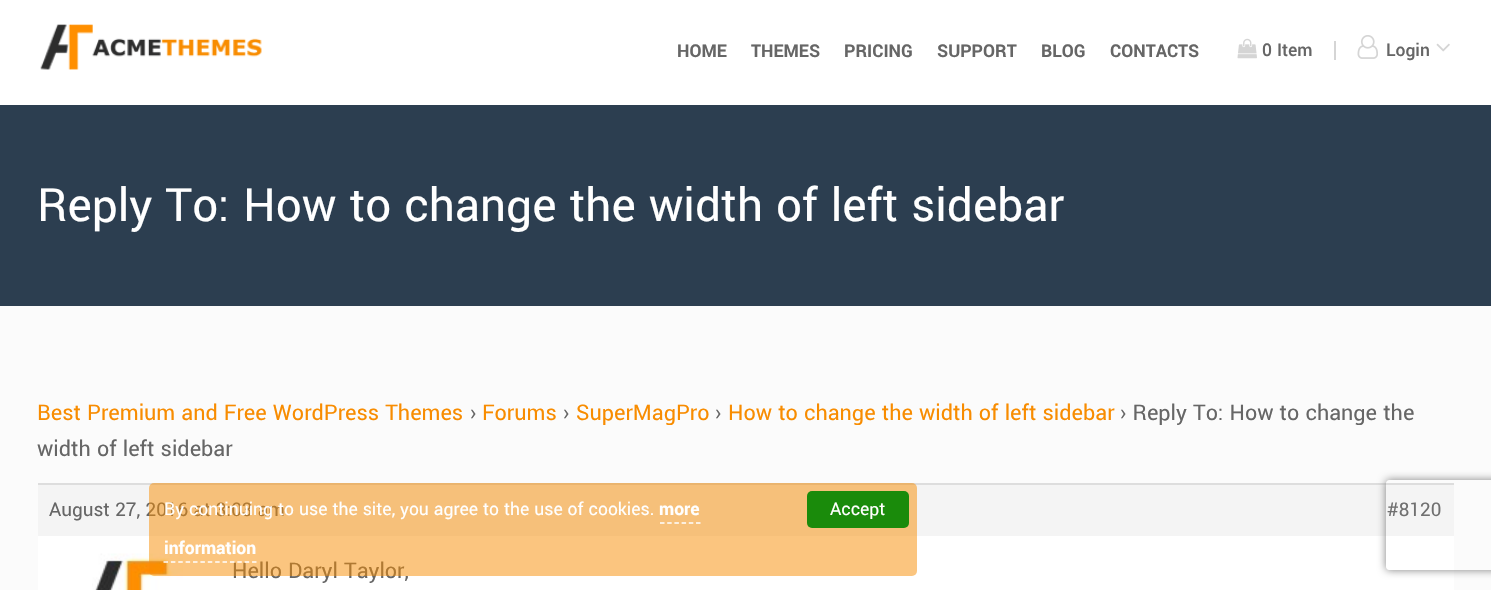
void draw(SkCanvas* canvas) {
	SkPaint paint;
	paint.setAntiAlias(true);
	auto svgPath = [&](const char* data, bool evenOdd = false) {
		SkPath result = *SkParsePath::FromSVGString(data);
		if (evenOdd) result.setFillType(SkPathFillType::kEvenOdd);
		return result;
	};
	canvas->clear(0xfffbfbfb);
	paint.setColor(0xffffffff);
	canvas->drawRect(SkRect::MakeXYWH(0, 0, 1491, 105), paint);
	canvas->drawImageRect(SkImages::DeferredFromEncodedData(SkData::MakeFromFileName("img1.png")), SkRect::MakeXYWH(40, 24, 222, 46), SkSamplingOptions());
	SkFont f1(fontMgr->matchFamilyStyle("Yantramanav", SkFontStyle::Bold()), 19.5);
	f1.setSubpixel(true);
	paint.setColor(0xff666666);
	canvas->drawString("HOME", 677, 57, f1, paint);
	canvas->drawString("THEMES", 751, 57, f1, paint);
	canvas->drawString("PRICING", 844, 57, f1, paint);
	canvas->drawString("SUPPORT", 937, 57, f1, paint);
	canvas->drawString("BLOG", 1041, 57, f1, paint);
	canvas->drawString("CONTACTS", 1110, 57, f1, paint);
	canvas->drawImageRect(SkImages::DeferredFromEncodedData(SkData::MakeFromFileName("img2.png")), SkRect::MakeXYWH(1237, 38, 20, 21), SkSamplingOptions());
	SkFont f2(fontMgr->matchFamilyStyle("Yantramanav", SkFontStyle(500, SkFontStyle::kNormal_Width, SkFontStyle::kUpright_Slant)), 19.5);
	f2.setSubpixel(true);
	canvas->drawString("0 Item", 1262, 56, f2, paint);
	paint.setColor(0xffd5d5d5);
	canvas->drawRect(SkRect::MakeXYWH(1334, 41, 2, 19), paint);
	canvas->drawImageRect(SkImages::DeferredFromEncodedData(SkData::MakeFromFileName("img3.png")), SkRect::MakeXYWH(1357, 35, 21, 24), SkSamplingOptions());
	paint.setColor(0xff666666);
	canvas->drawString("Login", 1386, 56, f2, paint);
	canvas->drawImageRect(SkImages::DeferredFromEncodedData(SkData::MakeFromFileName("img4.png")), SkRect::MakeXYWH(1436, 43, 14, 9), SkSamplingOptions());
	paint.setColor(0xff2c3e50);
	canvas->drawRect(SkRect::MakeXYWH(0, 105, 1491, 201), paint);
	SkFont f3(fontMgr->matchFamilyStyle("Yantramanav", SkFontStyle::Normal()), 51);
	f3.setSubpixel(true);
	paint.setColor(0xffffffff);
	canvas->drawString("Reply To: How to change the width of left sidebar", 37, 221, f3, paint);
	SkFont f4(fontMgr->matchFamilyStyle("Yantramanav", SkFontStyle::Normal()), 24);
	f4.setSubpixel(true);
	paint.setColor(0xfff88c00);
	canvas->drawString("Best Premium and Free WordPress Themes", 37, 420, f4, paint);
	paint.setColor(0xff666666);
	canvas->drawString("›", 470, 420, f4, paint);
	paint.setColor(0xfff88c00);
	canvas->drawString("Forums", 482, 420, f4, paint);
	paint.setColor(0xff666666);
	canvas->drawString("›", 563, 420, f4, paint);
	paint.setColor(0xfff88c00);
	canvas->drawString("SuperMagPro", 576, 420, f4, paint);
	paint.setColor(0xff666666);
	canvas->drawString("›", 715, 420, f4, paint);
	paint.setColor(0xfff88c00);
	canvas->drawString("How to change the width of left sidebar", 728, 420, f4, paint);
	paint.setColor(0xff666666);
	canvas->drawString("› Reply To: How to change the", 1120, 420, f4, paint);
	canvas->drawString("width of left sidebar", 37, 456, f4, paint);
	paint.setColor(0xfff4f4f4);
	canvas->drawRect(SkRect::MakeXYWH(38, 485, 1416, 51), paint);
	paint.setColor(0xffdddddd);
	canvas->drawRect(SkRect::MakeXYWH(38, 483, 1416, 2), paint);
	SkFont f5(fontMgr->matchFamilyStyle("Yantramanav", SkFontStyle::Normal()), 21);
	f5.setSubpixel(true);
	paint.setColor(0xff666666);
	canvas->drawString("August 27, 2016 at 3:03 am", 49, 516, f5, paint);
	paint.setColor(0xff707070);
	canvas->drawString("#8120", 1387, 516, f5, paint);
	paint.setColor(0xffffffff);
	canvas->drawRect(SkRect::MakeXYWH(38, 536, 1416, 54), paint);
	canvas->drawImageRect(SkImages::DeferredFromEncodedData(SkData::MakeFromFileName("img5.png")), SkRect::MakeXYWH(92, 553, 91, 37), SkSamplingOptions());
	paint.setColor(0xff666666);
	canvas->drawString("Hello Daryl Taylor,", 232, 578, f4, paint);
	paint.setColor(0x80f88c00);
	canvas->drawRoundRect(SkRect::MakeXYWH(149, 483, 768, 93), 5, 5, paint);
	SkFont f6(fontMgr->matchFamilyStyle("Yantramanav", SkFontStyle::Normal()), 19.5);
	f6.setSubpixel(true);
	paint.setColor(0xffffffff);
	canvas->drawString("By continuing to use the site, you agree to the use of cookies.", 164, 515, f6, paint);
	canvas->drawString("more", 659, 515, f1, paint);
	paint.setStroke(true);
	paint.setStrokeWidth(1.5);
	paint.setPathEffect(SkDashPathEffect::Make({{4.5f, 2.7f}}, 0));
	canvas->drawPath(svgPath("M660 523H700.5"), paint);
	paint.setPathEffect(nullptr);
	paint.setStroke(false);
	canvas->drawString("information", 164, 554, f1, paint);
	paint.setStroke(true);
	paint.setPathEffect(SkDashPathEffect::Make({{4.5f, 2.88f}}, 0));
	canvas->drawPath(svgPath("M163.5 562H256.5"), paint);
	paint.setPathEffect(nullptr);
	paint.setStroke(false);
	paint.setColor(0xff1a8b0b);
	canvas->drawRoundRect(SkRect::MakeXYWH(807, 491, 102, 37), 5, 5, paint);
	paint.setColor(0xffffffff);
	canvas->drawString("Accept", 830, 515, f6, paint);
	canvas->save();
	canvas->clipPath(svgPath("M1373 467H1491V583H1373ZM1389 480H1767C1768.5 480 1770 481.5 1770 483V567C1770 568.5 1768.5 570 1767 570H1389C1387.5 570 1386 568.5 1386 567V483C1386 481.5 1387.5 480 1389 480Z", true), true);
	paint.setColor(0xff808080);
	paint.setMaskFilter(SkMaskFilter::MakeBlur(kNormal_SkBlurStyle, 4));
	canvas->drawRoundRect(SkRect::MakeXYWH(1386, 480, 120, 90), 3, 3, paint);
	paint.setMaskFilter(nullptr);
	canvas->restore();
}
